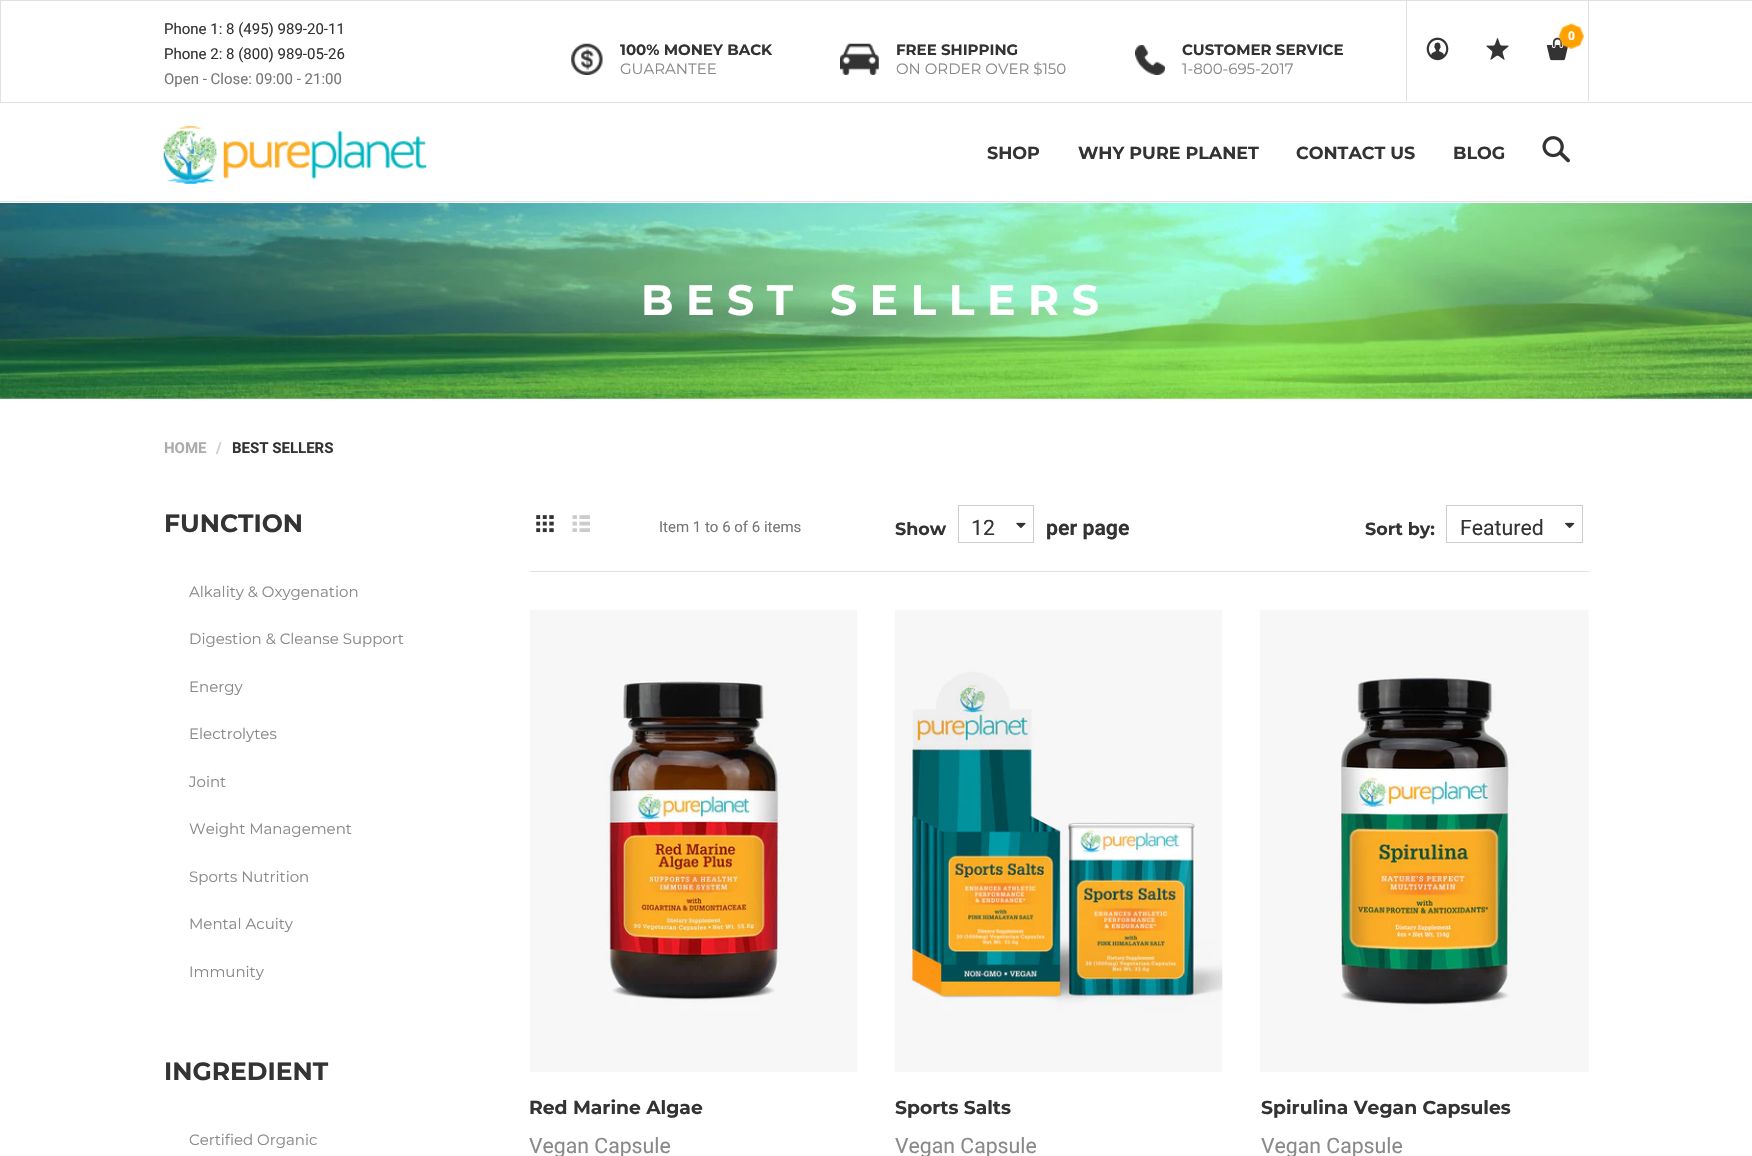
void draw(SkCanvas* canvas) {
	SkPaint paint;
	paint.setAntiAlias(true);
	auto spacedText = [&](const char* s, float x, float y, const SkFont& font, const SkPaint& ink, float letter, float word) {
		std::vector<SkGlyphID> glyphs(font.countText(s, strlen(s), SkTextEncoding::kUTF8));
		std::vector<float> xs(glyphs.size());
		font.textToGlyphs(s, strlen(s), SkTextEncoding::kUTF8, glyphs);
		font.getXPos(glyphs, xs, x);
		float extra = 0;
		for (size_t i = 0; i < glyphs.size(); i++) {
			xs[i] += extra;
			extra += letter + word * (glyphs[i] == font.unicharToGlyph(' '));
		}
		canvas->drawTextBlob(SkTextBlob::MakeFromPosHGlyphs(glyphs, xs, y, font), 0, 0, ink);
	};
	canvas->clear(0xffffffff);
	paint.setStroke(true);
	paint.setStrokeWidth(1);
	paint.setColor(0xffe1e1e1);
	canvas->drawRect(SkRect::MakeXYWH(0.5, 0.5, 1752, 102), paint);
	SkFont f1(fontMgr->matchFamilyStyle("Roboto", SkFontStyle::Normal()), 15);
	f1.setSubpixel(true);
	paint.setStroke(false);
	paint.setColor(0xff333333);
	canvas->drawString("Phone 1: 8 (495) 989-20-11", 164, 34, f1, paint);
	canvas->drawString("Phone 2: 8 (800) 989-05-26", 164, 59, f1, paint);
	paint.setColor(0xff777777);
	canvas->drawString("Open - Close: 09:00 - 21:00", 164, 84, f1, paint);
	paint.setColor(0xffe1e1e1);
	canvas->drawRect(SkRect::MakeXYWH(1588, 1, 1, 100), paint);
	canvas->drawRect(SkRect::MakeXYWH(1406, 1, 1, 100), paint);
	canvas->drawImageRect(SkImages::DeferredFromEncodedData(SkData::MakeFromFileName("img2.png")), SkRect::MakeXYWH(1546, 37, 22, 24), SkSamplingOptions());
	canvas->drawImageRect(SkImages::DeferredFromEncodedData(SkData::MakeFromFileName("img1.png")), SkRect::MakeXYWH(1558, 23, 26, 26), SkSamplingOptions());
	SkFont f2(fontMgr->matchFamilyStyle("Roboto", SkFontStyle::Bold()), 12);
	f2.setSubpixel(true);
	paint.setColor(0xffffffff);
	canvas->drawString("0", 1568, 40, f2, paint);
	canvas->drawImageRect(SkImages::DeferredFromEncodedData(SkData::MakeFromFileName("img3.png")), SkRect::MakeXYWH(1426, 37, 23, 24), SkSamplingOptions());
	canvas->drawImageRect(SkImages::DeferredFromEncodedData(SkData::MakeFromFileName("img4.png")), SkRect::MakeXYWH(1486, 38, 23, 22), SkSamplingOptions());
	canvas->drawImageRect(SkImages::DeferredFromEncodedData(SkData::MakeFromFileName("img5.png")), SkRect::MakeXYWH(571, 43, 32, 32), SkSamplingOptions());
	SkFont f3(fontMgr->matchFamilyStyle("Montserrat", SkFontStyle::Bold()), 15);
	f3.setSubpixel(true);
	paint.setColor(0xff333333);
	canvas->drawString("100% MONEY BACK", 620, 55, f3, paint);
	SkFont f4(fontMgr->matchFamilyStyle("Montserrat", SkFontStyle::Normal()), 15);
	f4.setSubpixel(true);
	paint.setColor(0xff898989);
	canvas->drawString("GUARANTEE", 620, 74, f4, paint);
	canvas->drawImageRect(SkImages::DeferredFromEncodedData(SkData::MakeFromFileName("img6.png")), SkRect::MakeXYWH(840, 43, 39, 32), SkSamplingOptions());
	paint.setColor(0xff333333);
	canvas->drawString("FREE SHIPPING", 896, 55, f3, paint);
	paint.setColor(0xff898989);
	canvas->drawString("ON ORDER OVER $150", 896, 74, f4, paint);
	canvas->drawImageRect(SkImages::DeferredFromEncodedData(SkData::MakeFromFileName("img7.png")), SkRect::MakeXYWH(1135, 45, 30, 30), SkSamplingOptions());
	paint.setColor(0xff333333);
	canvas->drawString("CUSTOMER SERVICE", 1182, 55, f3, paint);
	paint.setColor(0xff898989);
	canvas->drawString("1-800-695-2017", 1182, 74, f4, paint);
	paint.setColor(0xffe1e1e1);
	canvas->drawRect(SkRect::MakeXYWH(0, 201, 1752, 1), paint);
	canvas->drawImageRect(SkImages::DeferredFromEncodedData(SkData::MakeFromFileName("img8.png")), SkRect::MakeXYWH(163, 126, 264, 58), SkSamplingOptions());
	SkFont f5(fontMgr->matchFamilyStyle("Montserrat", SkFontStyle::Bold()), 17.5);
	f5.setSubpixel(true);
	paint.setColor(0xff333333);
	canvas->drawString("SHOP", 987, 159, f5, paint);
	canvas->drawString("WHY PURE PLANET", 1078, 159, f5, paint);
	canvas->drawString("CONTACT US", 1296, 159, f5, paint);
	canvas->drawString("BLOG", 1453, 159, f5, paint);
	canvas->drawImageRect(SkImages::DeferredFromEncodedData(SkData::MakeFromFileName("img9.png")), SkRect::MakeXYWH(1542, 136, 28, 27), SkSamplingOptions());
	canvas->drawImageRect(SkImages::DeferredFromEncodedData(SkData::MakeFromFileName("img10.png")), SkRect::MakeXYWH(0, 203, 1752, 196), SkSamplingOptions());
	SkFont f6(fontMgr->matchFamilyStyle("Montserrat", SkFontStyle::Bold()), 42.5);
	f6.setSubpixel(true);
	paint.setColor(0xffffffff);
	spacedText("BEST SELLERS", 641, 315, f6, paint, 12.5, 0);
	SkFont f7(fontMgr->matchFamilyStyle("Roboto", SkFontStyle::Bold()), 15);
	f7.setSubpixel(true);
	paint.setColor(0xffacacac);
	canvas->drawString("HOME", 164, 453, f7, paint);
	paint.setColor(0xffcccccc);
	canvas->drawString("/", 216, 453, f7, paint);
	paint.setColor(0xff333333);
	canvas->drawString("BEST SELLERS", 232, 453, f7, paint);
	SkFont f8(fontMgr->matchFamilyStyle("Montserrat", SkFontStyle::Bold()), 25);
	f8.setSubpixel(true);
	canvas->drawString("FUNCTION", 164, 532, f8, paint);
	paint.setColor(0xff898989);
	canvas->drawString("Alkality & Oxygenation", 189, 597, f4, paint);
	canvas->drawString("Digestion & Cleanse Support", 189, 644, f4, paint);
	canvas->drawString("Energy", 189, 692, f4, paint);
	canvas->drawString("Electrolytes", 189, 739, f4, paint);
	canvas->drawString("Joint", 189, 787, f4, paint);
	canvas->drawString("Weight Management", 189, 834, f4, paint);
	canvas->drawString("Sports Nutrition", 189, 882, f4, paint);
	canvas->drawString("Mental Acuity", 189, 929, f4, paint);
	canvas->drawString("Immunity", 189, 977, f4, paint);
	paint.setColor(0xff333333);
	canvas->drawString("INGREDIENT", 164, 1080, f8, paint);
	paint.setColor(0xff898989);
	canvas->drawString("Certified Organic", 189, 1145, f4, paint);
	paint.setColor(0xffe1e1e1);
	canvas->drawRect(SkRect::MakeXYWH(530, 571, 1059, 1), paint);
	canvas->drawImageRect(SkImages::DeferredFromEncodedData(SkData::MakeFromFileName("img11.png")), SkRect::MakeXYWH(536, 515, 18, 18), SkSamplingOptions());
	canvas->drawImageRect(SkImages::DeferredFromEncodedData(SkData::MakeFromFileName("img12.png")), SkRect::MakeXYWH(572, 515, 18, 17), SkSamplingOptions());
	paint.setColor(0xff777777);
	canvas->drawString("Item 1 to 6 of 6 items", 659, 532, f1, paint);
	paint.setColor(0xff333333);
	canvas->drawString("Show", 895, 535, f5, paint);
	paint.setStroke(true);
	paint.setColor(0xffcccccc);
	canvas->drawRect(SkRect::MakeXYWH(958.5, 505.5, 75, 37), paint);
	SkFont f9(fontMgr->matchFamilyStyle("Roboto", SkFontStyle::Normal()), 21.25);
	f9.setSubpixel(true);
	paint.setStroke(false);
	paint.setColor(0xff333333);
	canvas->drawString("12", 971, 535, f9, paint);
	canvas->drawImageRect(SkImages::DeferredFromEncodedData(SkData::MakeFromFileName("img13.png")), SkRect::MakeXYWH(1016, 522, 10, 6), SkSamplingOptions());
	SkFont f10(fontMgr->matchFamilyStyle("Roboto", SkFontStyle::Bold()), 21.25);
	f10.setSubpixel(true);
	canvas->drawString("per page", 1046, 535, f10, paint);
	canvas->drawString("Sort by:", 1365, 535, f5, paint);
	paint.setStroke(true);
	paint.setColor(0xffcccccc);
	canvas->drawRect(SkRect::MakeXYWH(1446.5, 505.5, 136, 37), paint);
	paint.setStroke(false);
	paint.setColor(0xff333333);
	canvas->drawString("Featured", 1460, 535, f9, paint);
	canvas->drawImageRect(SkImages::DeferredFromEncodedData(SkData::MakeFromFileName("img14.png")), SkRect::MakeXYWH(1565, 522, 10, 6), SkSamplingOptions());
	canvas->drawImageRect(SkImages::DeferredFromEncodedData(SkData::MakeFromFileName("img15.png")), SkRect::MakeXYWH(530, 610, 327, 462), SkSamplingOptions());
	SkFont f11(fontMgr->matchFamilyStyle("Montserrat", SkFontStyle::Bold()), 18.75);
	f11.setSubpixel(true);
	canvas->drawString("Red Marine Algae", 529, 1114, f11, paint);
	paint.setColor(0xff898989);
	canvas->drawString("Vegan Capsule", 529, 1153, f9, paint);
	canvas->drawImageRect(SkImages::DeferredFromEncodedData(SkData::MakeFromFileName("img16.png")), SkRect::MakeXYWH(895, 610, 328, 462), SkSamplingOptions());
	paint.setColor(0xff333333);
	canvas->drawString("Sports Salts", 895, 1114, f11, paint);
	paint.setColor(0xff898989);
	canvas->drawString("Vegan Capsule", 895, 1153, f9, paint);
	canvas->drawImageRect(SkImages::DeferredFromEncodedData(SkData::MakeFromFileName("img17.png")), SkRect::MakeXYWH(1260, 610, 329, 462), SkSamplingOptions());
	paint.setColor(0xff333333);
	canvas->drawString("Spirulina Vegan Capsules", 1261, 1114, f11, paint);
	paint.setColor(0xff898989);
	canvas->drawString("Vegan Capsule", 1261, 1153, f9, paint);
}
